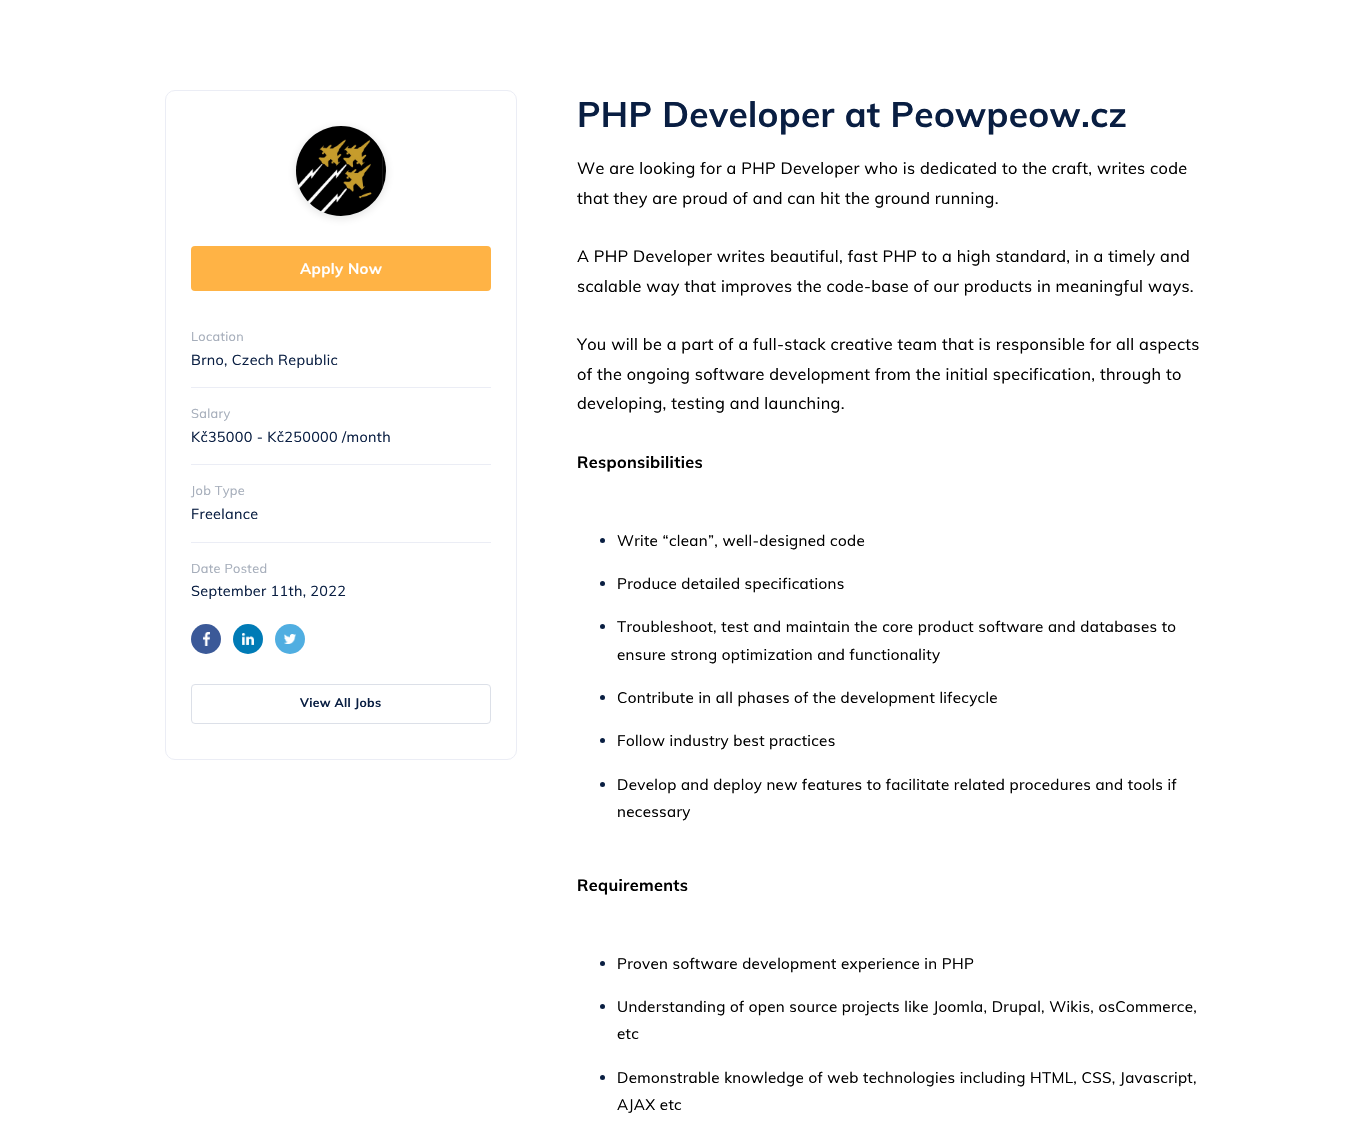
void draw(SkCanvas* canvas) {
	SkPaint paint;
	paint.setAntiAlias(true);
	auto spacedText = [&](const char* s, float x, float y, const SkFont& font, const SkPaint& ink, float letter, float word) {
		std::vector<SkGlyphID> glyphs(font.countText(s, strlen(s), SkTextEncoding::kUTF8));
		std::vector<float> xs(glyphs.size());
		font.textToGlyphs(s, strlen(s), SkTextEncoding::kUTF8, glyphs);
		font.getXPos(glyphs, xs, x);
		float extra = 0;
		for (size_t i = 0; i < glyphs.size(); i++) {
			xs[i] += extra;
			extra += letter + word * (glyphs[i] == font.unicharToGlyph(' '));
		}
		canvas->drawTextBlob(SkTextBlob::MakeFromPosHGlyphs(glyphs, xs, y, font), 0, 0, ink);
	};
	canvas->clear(0xffffffff);
	paint.setStroke(true);
	paint.setStrokeWidth(1);
	paint.setColor(0xffebedf5);
	canvas->drawRoundRect(SkRect::MakeXYWH(165.5, 90.5, 351, 669), 9.5, 9.5, paint);
	paint.setStroke(false);
	paint.setColor(0x1f0c1014);
	paint.setMaskFilter(SkMaskFilter::MakeBlur(kNormal_SkBlurStyle, 5));
	canvas->drawRoundRect(SkRect::MakeXYWH(296, 128, 90, 90), 45, 45, paint);
	paint.setMaskFilter(nullptr);
	canvas->drawImageRect(SkImages::DeferredFromEncodedData(SkData::MakeFromFileName("img1.png")), SkRect::MakeXYWH(296, 126, 90, 90), SkSamplingOptions());
	paint.setColor(0xffffb345);
	canvas->drawRoundRect(SkRect::MakeXYWH(191, 246, 300, 45), 4, 4, paint);
	SkFont f1(fontMgr->matchFamilyStyle("Muli", SkFontStyle::Bold()), 15);
	f1.setSubpixel(true);
	paint.setColor(0xffffffff);
	spacedText("Apply Now", 300, 274, f1, paint, 0.32, 0);
	paint.setColor(0xffebedf5);
	canvas->drawRect(SkRect::MakeXYWH(191, 387, 300, 1), paint);
	SkFont f2(fontMgr->matchFamilyStyle("Muli", SkFontStyle::Normal()), 12.75);
	f2.setSubpixel(true);
	paint.setColor(0xffa5adba);
	spacedText("Location", 191, 341, f2, paint, 0.32, 0);
	SkFont f3(fontMgr->matchFamilyStyle("Muli", SkFontStyle::Normal()), 14.4);
	f3.setSubpixel(true);
	paint.setColor(0xff091e42);
	spacedText("Brno, Czech Republic", 191, 365, f3, paint, 0.32, 0);
	paint.setColor(0xffebedf5);
	canvas->drawRect(SkRect::MakeXYWH(191, 464, 300, 1), paint);
	paint.setColor(0xffa5adba);
	spacedText("Salary", 191, 418, f2, paint, 0.32, 0);
	paint.setColor(0xff091e42);
	spacedText("Kč35000 - Kč250000 /month", 191, 442, f3, paint, 0.32, 0);
	paint.setColor(0xffebedf5);
	canvas->drawRect(SkRect::MakeXYWH(191, 542, 300, 1), paint);
	paint.setColor(0xffa5adba);
	spacedText("Job Type", 191, 495, f2, paint, 0.32, 0);
	paint.setColor(0xff091e42);
	spacedText("Freelance", 191, 519, f3, paint, 0.32, 0);
	paint.setColor(0xffa5adba);
	spacedText("Date Posted", 191, 573, f2, paint, 0.32, 0);
	paint.setColor(0xff091e42);
	spacedText("September 11th, 2022", 191, 596, f3, paint, 0.32, 0);
	paint.setColor(0xff3b5998);
	canvas->drawCircle(206, 639, 15, paint);
	canvas->drawImageRect(SkImages::DeferredFromEncodedData(SkData::MakeFromFileName("img2.png")), SkRect::MakeXYWH(203, 632, 7, 14), SkSamplingOptions());
	paint.setColor(0xff007bb6);
	canvas->drawCircle(248, 639, 15, paint);
	canvas->drawImageRect(SkImages::DeferredFromEncodedData(SkData::MakeFromFileName("img3.png")), SkRect::MakeXYWH(242, 633, 12, 12), SkSamplingOptions());
	paint.setColor(0xff50aee1);
	canvas->drawCircle(290, 639, 15, paint);
	canvas->drawImageRect(SkImages::DeferredFromEncodedData(SkData::MakeFromFileName("img4.png")), SkRect::MakeXYWH(284, 634, 12, 10), SkSamplingOptions());
	paint.setStroke(true);
	paint.setColor(0xffdce0e8);
	canvas->drawRoundRect(SkRect::MakeXYWH(191.5, 684.5, 299, 39), 3.5, 3.5, paint);
	SkFont f4(fontMgr->matchFamilyStyle("Muli", SkFontStyle::Bold()), 12.25);
	f4.setSubpixel(true);
	paint.setStroke(false);
	paint.setColor(0xff091e42);
	spacedText("View All Jobs", 300, 707, f4, paint, 0.32, 0);
	SkFont f5(fontMgr->matchFamilyStyle("Muli", SkFontStyle::Bold()), 35.25);
	f5.setSubpixel(true);
	spacedText("PHP Developer at Peowpeow.cz", 577, 127, f5, paint, 0.32, 0);
	SkFont f6(fontMgr->matchFamilyStyle("Muli", SkFontStyle::Normal()), 16.3);
	f6.setSubpixel(true);
	paint.setColor(0xff000000);
	spacedText("We are looking for a PHP Developer who is dedicated to the craft, writes code", 577, 174, f6, paint, 0.32, 0);
	spacedText("that they are proud of and can hit the ground running.", 577, 204, f6, paint, 0.32, 0);
	spacedText("A PHP Developer writes beautiful, fast PHP to a high standard, in a timely and", 577, 262, f6, paint, 0.32, 0);
	spacedText("scalable way that improves the code-base of our products in meaningful ways.", 577, 292, f6, paint, 0.32, 0);
	spacedText("You will be a part of a full-stack creative team that is responsible for all aspects", 577, 350, f6, paint, 0.32, 0);
	spacedText("of the ongoing software development from the initial specification, through to", 577, 380, f6, paint, 0.32, 0);
	spacedText("developing, testing and launching.", 577, 409, f6, paint, 0.32, 0);
	SkFont f7(fontMgr->matchFamilyStyle("Muli", SkFontStyle::Bold()), 16.3);
	f7.setSubpixel(true);
	spacedText("Responsibilities", 577, 468, f7, paint, 0.32, 0);
	paint.setColor(0xff091e42);
	canvas->drawCircle(602.5, 540.5, 2.5, paint);
	SkFont f8(fontMgr->matchFamilyStyle("Muli", SkFontStyle::Normal()), 15.2);
	f8.setSubpixel(true);
	paint.setColor(0xff000000);
	spacedText("Write “clean”, well-designed code", 617, 546, f8, paint, 0.32, 0);
	paint.setColor(0xff091e42);
	canvas->drawCircle(602.5, 583.5, 2.5, paint);
	paint.setColor(0xff000000);
	spacedText("Produce detailed specifications", 617, 589, f8, paint, 0.32, 0);
	paint.setColor(0xff091e42);
	canvas->drawCircle(602.5, 626.5, 2.5, paint);
	paint.setColor(0xff000000);
	spacedText("Troubleshoot, test and maintain the core product software and databases to", 617, 632, f8, paint, 0.32, 0);
	spacedText("ensure strong optimization and functionality", 617, 660, f8, paint, 0.32, 0);
	paint.setColor(0xff091e42);
	canvas->drawCircle(602.5, 697.5, 2.5, paint);
	paint.setColor(0xff000000);
	spacedText("Contribute in all phases of the development lifecycle", 617, 703, f8, paint, 0.32, 0);
	paint.setColor(0xff091e42);
	canvas->drawCircle(602.5, 740.5, 2.5, paint);
	paint.setColor(0xff000000);
	spacedText("Follow industry best practices", 617, 746, f8, paint, 0.32, 0);
	paint.setColor(0xff091e42);
	canvas->drawCircle(602.5, 784.5, 2.5, paint);
	paint.setColor(0xff000000);
	spacedText("Develop and deploy new features to facilitate related procedures and tools if", 617, 790, f8, paint, 0.32, 0);
	spacedText("necessary", 617, 817, f8, paint, 0.32, 0);
	spacedText("Requirements", 577, 891, f7, paint, 0.32, 0);
	paint.setColor(0xff091e42);
	canvas->drawCircle(602.5, 963.5, 2.5, paint);
	paint.setColor(0xff000000);
	spacedText("Proven software development experience in PHP", 617, 969, f8, paint, 0.32, 0);
	paint.setColor(0xff091e42);
	canvas->drawCircle(602.5, 1006.5, 2.5, paint);
	paint.setColor(0xff000000);
	spacedText("Understanding of open source projects like Joomla, Drupal, Wikis, osCommerce,", 617, 1012, f8, paint, 0.32, 0);
	spacedText("etc", 617, 1039, f8, paint, 0.32, 0);
	paint.setColor(0xff091e42);
	canvas->drawCircle(602.5, 1077.5, 2.5, paint);
	paint.setColor(0xff000000);
	spacedText("Demonstrable knowledge of web technologies including HTML, CSS, Javascript,", 617, 1083, f8, paint, 0.32, 0);
	spacedText("AJAX etc", 617, 1110, f8, paint, 0.32, 0);
}
